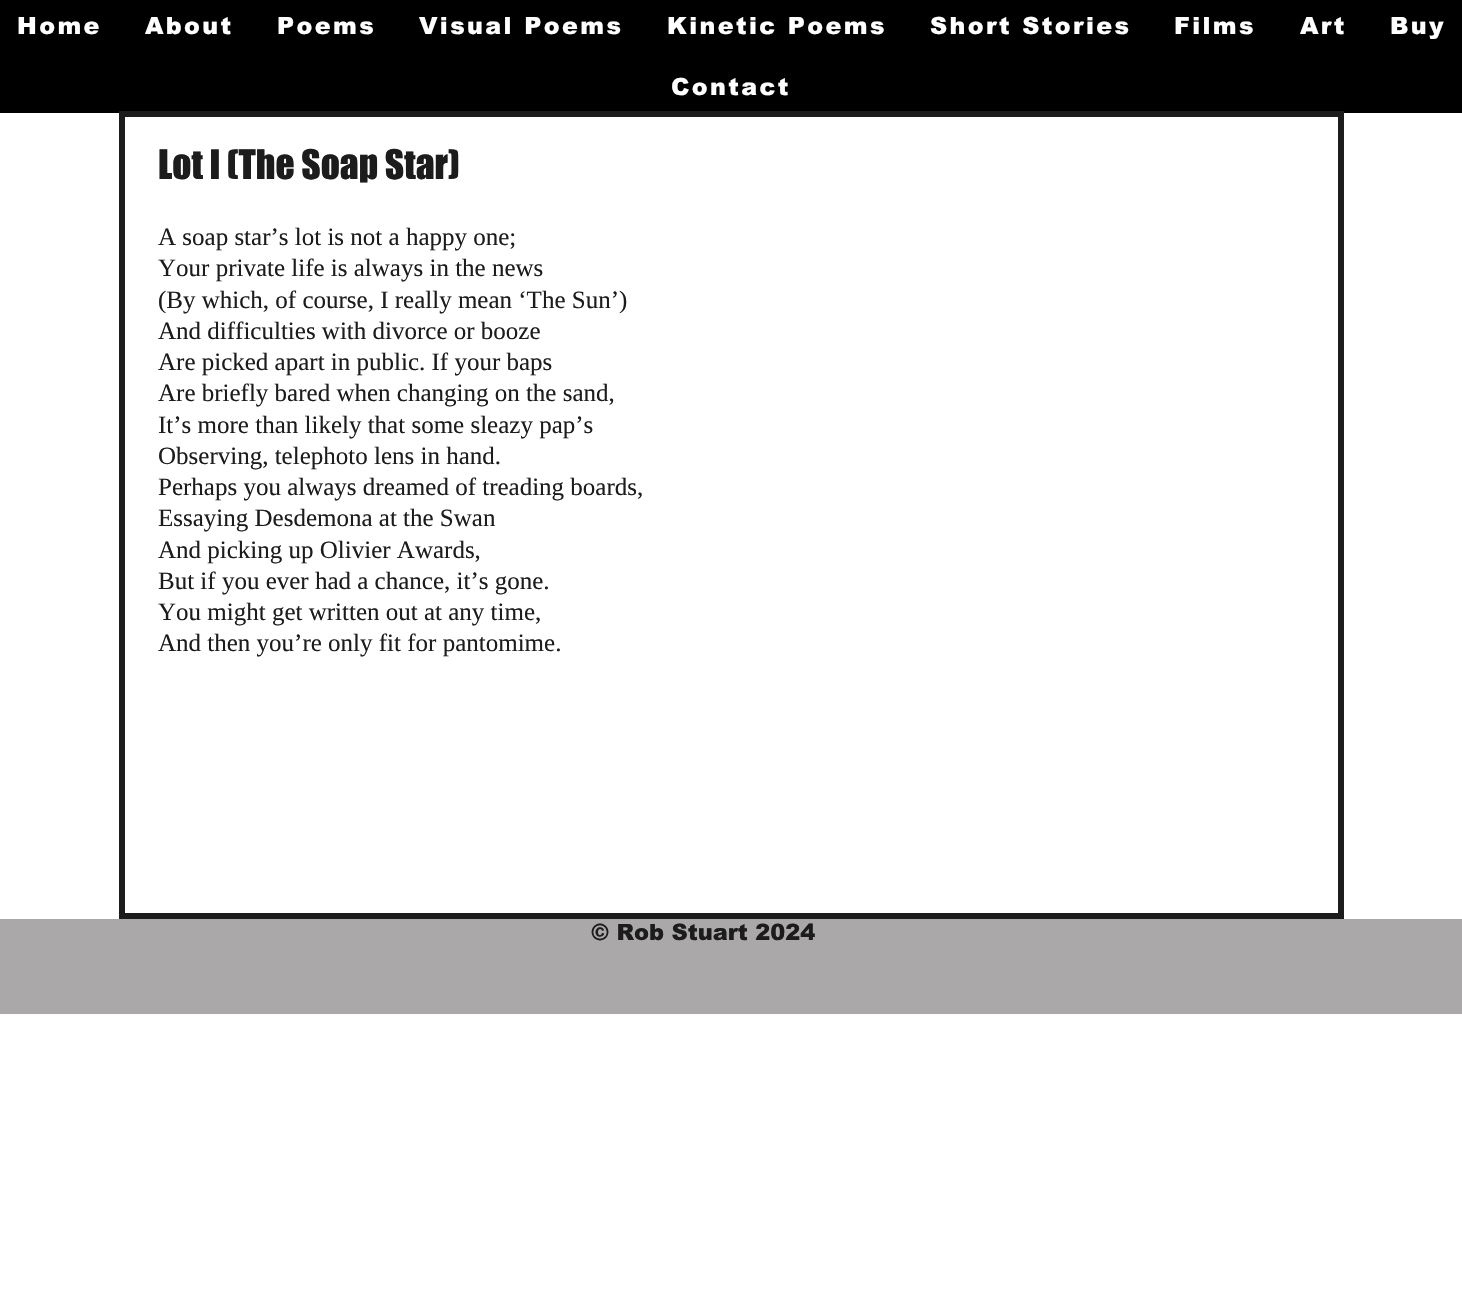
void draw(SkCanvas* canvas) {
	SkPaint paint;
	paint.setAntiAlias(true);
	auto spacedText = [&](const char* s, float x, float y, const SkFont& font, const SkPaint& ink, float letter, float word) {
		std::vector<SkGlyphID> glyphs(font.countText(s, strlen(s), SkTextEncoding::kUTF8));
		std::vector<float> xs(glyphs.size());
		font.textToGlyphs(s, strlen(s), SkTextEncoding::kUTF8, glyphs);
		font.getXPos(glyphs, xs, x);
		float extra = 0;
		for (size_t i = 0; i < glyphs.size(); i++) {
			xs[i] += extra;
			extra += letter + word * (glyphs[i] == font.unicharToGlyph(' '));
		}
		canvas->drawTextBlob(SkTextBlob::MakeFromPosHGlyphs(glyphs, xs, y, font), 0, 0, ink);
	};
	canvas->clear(0xffffffff);
	paint.setColor(0xff000000);
	canvas->drawRect(SkRect::MakeXYWH(0, 0, 1462, 113), paint);
	SkFont f1(fontMgr->matchFamilyStyle("arial", SkFontStyle(900, SkFontStyle::kNormal_Width, SkFontStyle::kUpright_Slant)), 23.75);
	f1.setSubpixel(true);
	paint.setColor(0xffffffff);
	spacedText("Home", 17, 34, f1, paint, 2.4, 0);
	spacedText("About", 145, 34, f1, paint, 2.4, 0);
	spacedText("Poems", 277, 34, f1, paint, 2.4, 0);
	spacedText("Visual Poems", 419, 34, f1, paint, 2.4, 0);
	spacedText("Kinetic Poems", 667, 34, f1, paint, 2.4, 0);
	spacedText("Short Stories", 930, 34, f1, paint, 2.4, 0);
	spacedText("Films", 1174, 34, f1, paint, 2.4, 0);
	spacedText("Art", 1300, 34, f1, paint, 2.4, 0);
	spacedText("Buy", 1390, 34, f1, paint, 2.4, 0);
	spacedText("Contact", 671, 95, f1, paint, 2.4, 0);
	paint.setStroke(true);
	paint.setStrokeWidth(6);
	paint.setColor(0xff1c1c1c);
	canvas->drawRect(SkRect::MakeXYWH(122, 114, 1219, 802), paint);
	SkFont f2(fontMgr->matchFamilyStyle("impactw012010", SkFontStyle::Normal()), 37.5);
	f2.setSubpixel(true);
	paint.setStroke(false);
	canvas->drawString("Lot I (The Soap Star)", 158, 179, f2, paint);
	SkFont f3(fontMgr->matchFamilyStyle("Liberation Serif", SkFontStyle::Normal()), 25);
	f3.setSubpixel(true);
	canvas->drawString("A soap star’s lot is not a happy one;", 158, 245, f3, paint);
	canvas->drawString("Your private life is always in the news", 158, 276, f3, paint);
	canvas->drawString("(By which, of course, I really mean ‘The Sun’)", 158, 308, f3, paint);
	canvas->drawString("And difficulties with divorce or booze", 158, 339, f3, paint);
	canvas->drawString("Are picked apart in public. If your baps", 158, 370, f3, paint);
	canvas->drawString("Are briefly bared when changing on the sand,", 158, 401, f3, paint);
	canvas->drawString("It’s more than likely that some sleazy pap’s", 158, 433, f3, paint);
	canvas->drawString("Observing, telephoto lens in hand.", 158, 464, f3, paint);
	canvas->drawString("Perhaps you always dreamed of treading boards,", 158, 495, f3, paint);
	canvas->drawString("Essaying Desdemona at the Swan", 158, 526, f3, paint);
	canvas->drawString("And picking up Olivier Awards,", 158, 558, f3, paint);
	canvas->drawString("But if you ever had a chance, it’s gone.", 158, 589, f3, paint);
	canvas->drawString("You might get written out at any time,", 158, 620, f3, paint);
	canvas->drawString("And then you’re only fit for pantomime.", 158, 651, f3, paint);
	paint.setColor(0xffaaa8a8);
	canvas->drawRect(SkRect::MakeXYWH(0, 919, 1462, 95), paint);
	SkFont f4(fontMgr->matchFamilyStyle("arial", SkFontStyle(900, SkFontStyle::kNormal_Width, SkFontStyle::kUpright_Slant)), 22.5);
	f4.setSubpixel(true);
	paint.setColor(0xff1c1c1c);
	canvas->drawString("© Rob Stuart 2024", 591, 940, f4, paint);
}
